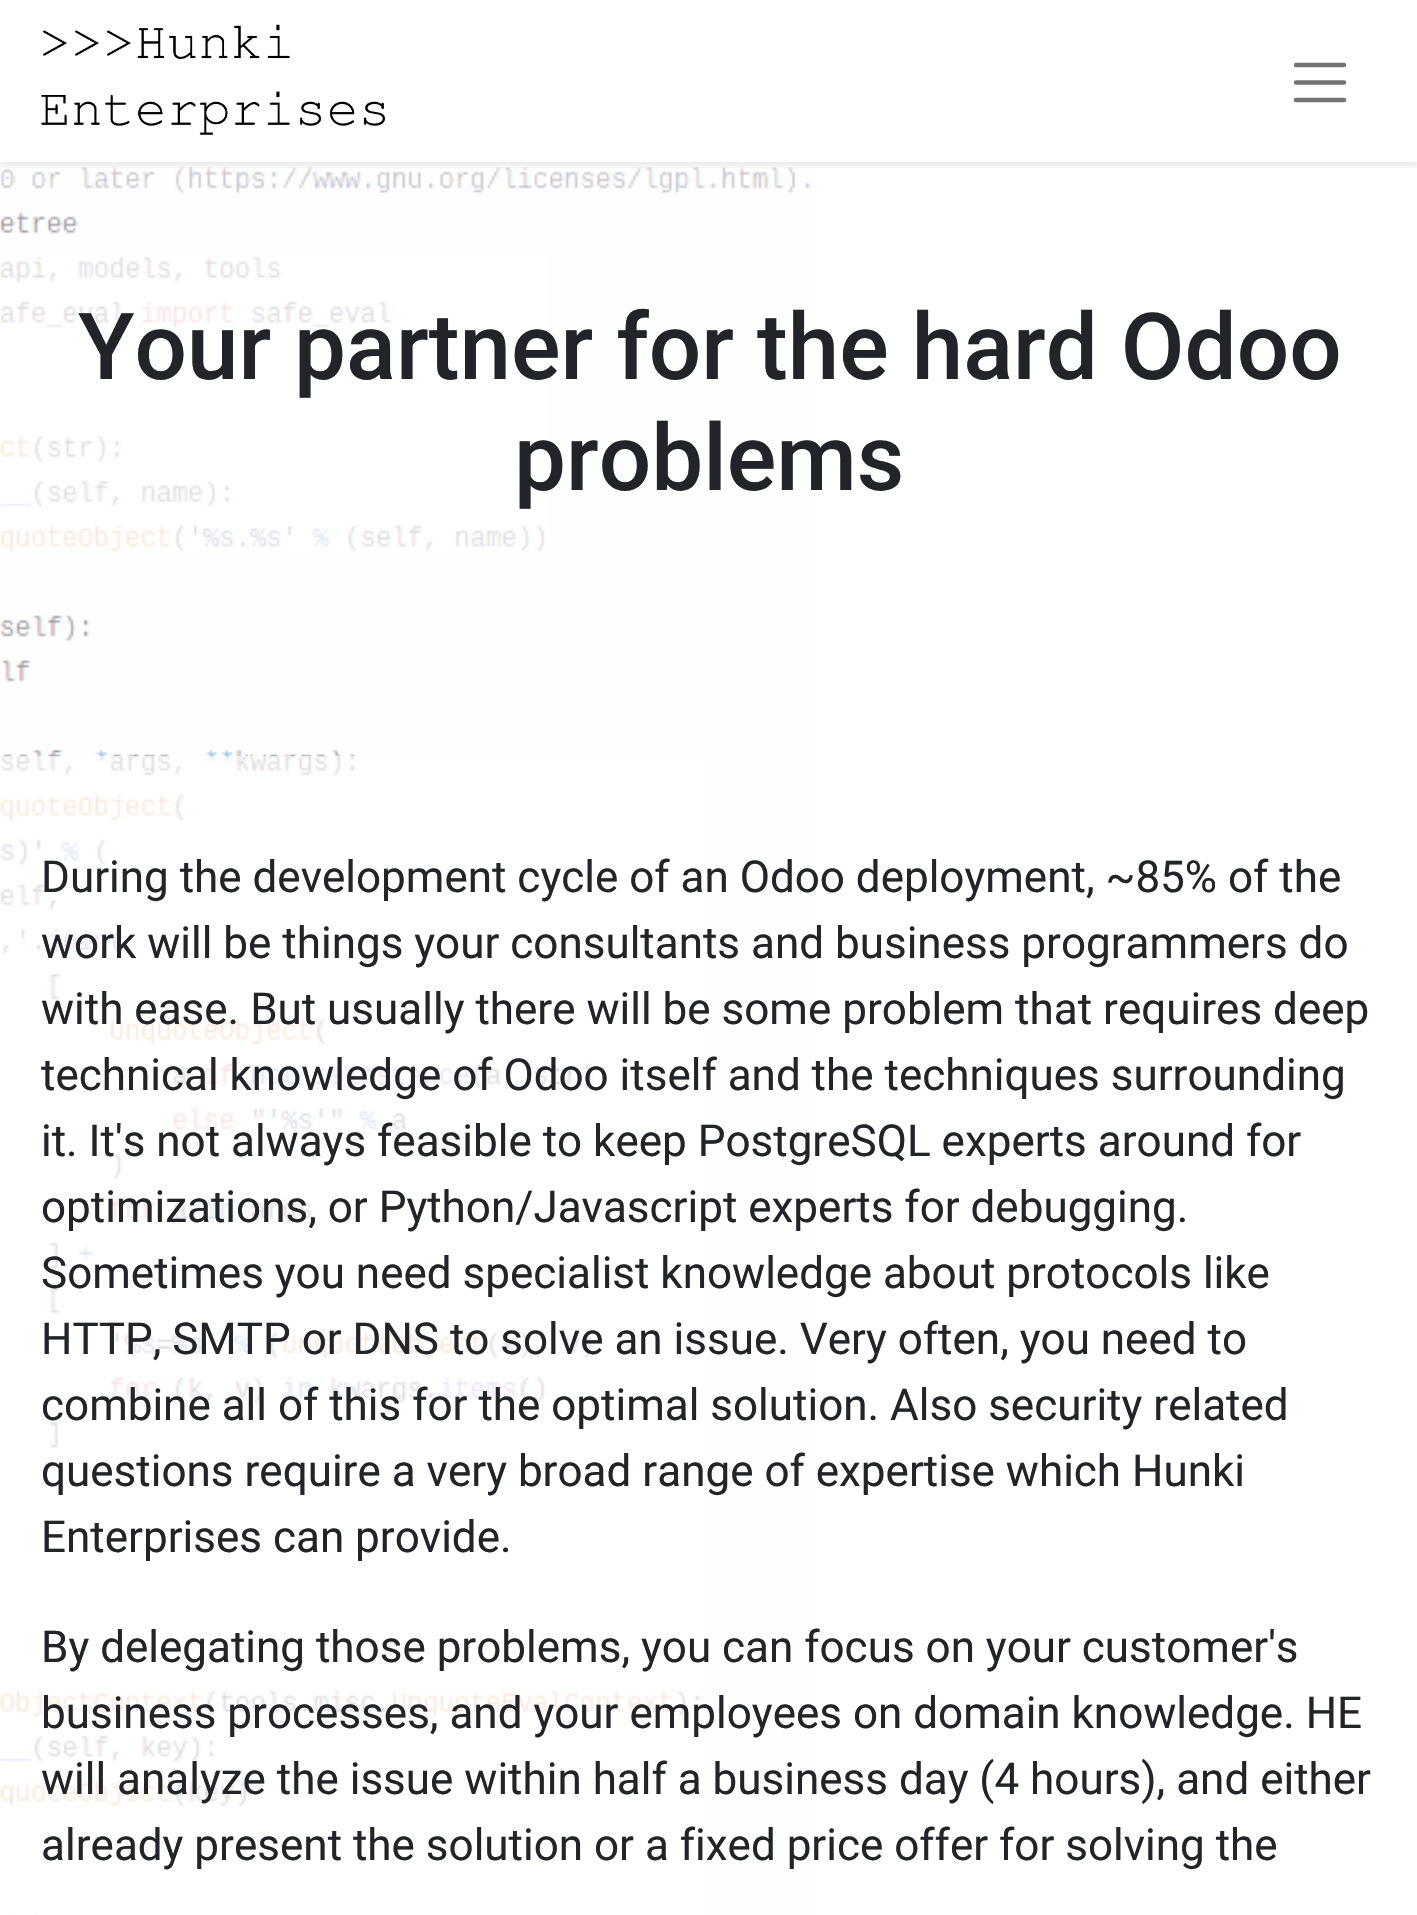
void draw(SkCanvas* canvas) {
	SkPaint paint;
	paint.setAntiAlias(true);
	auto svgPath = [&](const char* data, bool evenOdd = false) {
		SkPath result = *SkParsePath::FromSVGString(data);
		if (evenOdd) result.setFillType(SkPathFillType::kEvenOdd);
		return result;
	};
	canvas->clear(0xffffffff);
	canvas->drawImageRect(SkImages::DeferredFromEncodedData(SkData::MakeFromFileName("img2.png")), SkRect::MakeXYWH(0, 167, 811, 1748), SkSamplingOptions());
	canvas->save();
	canvas->clipRect(SkRect::MakeXYWH(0, 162, 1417, 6));
	paint.setColor(0x1a000000);
	paint.setMaskFilter(SkMaskFilter::MakeBlur(kNormal_SkBlurStyle, 4));
	canvas->drawRect(SkRect::MakeXYWH(0, 3, 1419, 162), paint);
	paint.setMaskFilter(nullptr);
	canvas->restore();
	canvas->drawImageRect(SkImages::DeferredFromEncodedData(SkData::MakeFromFileName("img1.png")), SkRect::MakeXYWH(41, 24, 344, 111), SkSamplingOptions());
	paint.setStroke(true);
	paint.setStrokeWidth(4.4);
	paint.setStrokeCap(SkPaint::kRound_Cap);
	paint.setColor(0xff737373);
	canvas->drawPath(svgPath("M1296 65H1344M1296 82.5H1344M1296 100H1344"), paint);
	paint.setStroke(false);
	paint.setColor(0xa6ffffff);
	canvas->drawRect(SkRect::MakeXYWH(0, 256, 547, 296), paint);
	SkFont f1(fontMgr->matchFamilyStyle("Roboto", SkFontStyle(500, SkFontStyle::kNormal_Width, SkFontStyle::kUpright_Slant)), 92.5);
	f1.setSubpixel(true);
	paint.setColor(0xff212529);
	canvas->drawString("Your partner for the hard Odoo", 78, 379, f1, paint);
	canvas->drawString("problems", 514, 490, f1, paint);
	paint.setColor(0xa6ffffff);
	canvas->drawRect(SkRect::MakeXYWH(0, 756, 702, 1159), paint);
	SkFont f2(fontMgr->matchFamilyStyle("Roboto", SkFontStyle::Normal()), 44);
	f2.setSubpixel(true);
	paint.setColor(0xff212529);
	canvas->drawString("During the development cycle of an Odoo deployment, ~85% of the", 41, 892, f2, paint);
	canvas->drawString("work will be things your consultants and business programmers do", 41, 958, f2, paint);
	canvas->drawString("with ease. But usually there will be some problem that requires deep", 41, 1024, f2, paint);
	canvas->drawString("technical knowledge of Odoo itself and the techniques surrounding", 41, 1090, f2, paint);
	canvas->drawString("it. It's not always feasible to keep PostgreSQL experts around for", 41, 1156, f2, paint);
	canvas->drawString("optimizations, or Python/Javascript experts for debugging.", 41, 1222, f2, paint);
	canvas->drawString("Sometimes you need specialist knowledge about protocols like", 41, 1288, f2, paint);
	canvas->drawString("HTTP, SMTP or DNS to solve an issue. Very often, you need to", 41, 1354, f2, paint);
	canvas->drawString("combine all of this for the optimal solution. Also security related", 41, 1420, f2, paint);
	canvas->drawString("questions require a very broad range of expertise which Hunki", 41, 1486, f2, paint);
	canvas->drawString("Enterprises can provide.", 41, 1552, f2, paint);
	canvas->drawString("By delegating those problems, you can focus on your customer's", 41, 1662, f2, paint);
	canvas->drawString("business processes, and your employees on domain knowledge. HE", 41, 1728, f2, paint);
	canvas->drawString("will analyze the issue within half a business day (4 hours), and either", 41, 1794, f2, paint);
	canvas->drawString("already present the solution or a fixed price offer for solving the", 41, 1860, f2, paint);
}
